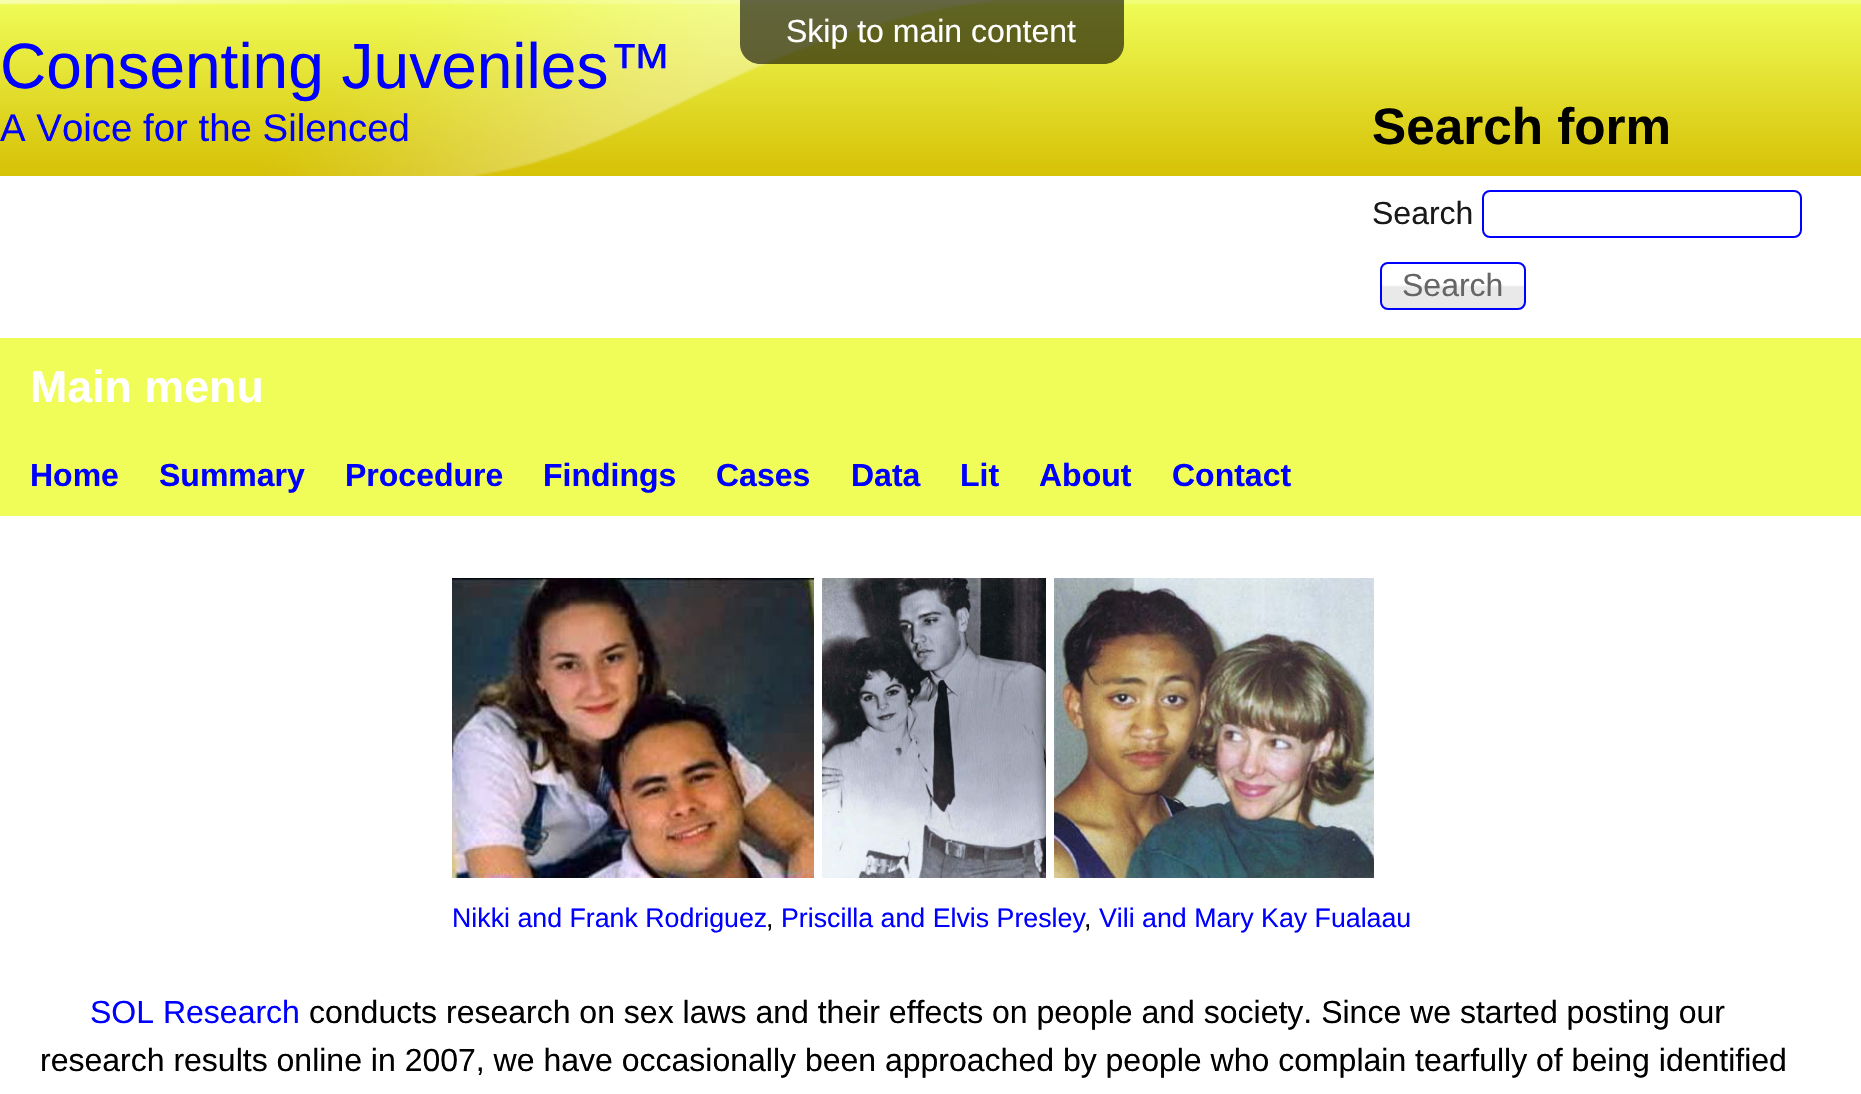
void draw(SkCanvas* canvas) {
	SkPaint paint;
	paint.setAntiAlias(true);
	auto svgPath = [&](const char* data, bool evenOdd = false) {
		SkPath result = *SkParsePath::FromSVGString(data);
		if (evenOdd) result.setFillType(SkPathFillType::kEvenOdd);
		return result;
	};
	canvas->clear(0xffffffff);
	canvas->drawImageRect(SkImages::DeferredFromEncodedData(SkData::MakeFromFileName("img1.png")), SkRect::MakeXYWH(998, 0, 863, 176), SkSamplingOptions());
	canvas->drawImageRect(SkImages::DeferredFromEncodedData(SkData::MakeFromFileName("img2.png")), SkRect::MakeXYWH(0, 0, 998, 176), SkSamplingOptions());
	paint.setColor(0x99000000);
	canvas->drawPath(svgPath("M740 0H1124V44C1124 55 1115 64 1104 64H760C749 64 740 55 740 44Z"), paint);
	SkFont f1(fontMgr->matchFamilyStyle("Liberation Sans", SkFontStyle::Normal()), 32);
	f1.setSubpixel(true);
	paint.setColor(0xffffffff);
	canvas->drawString("Skip to main content", 786, 42, f1, paint);
	SkFont f2(fontMgr->matchFamilyStyle("Liberation Sans", SkFontStyle::Normal()), 64);
	f2.setSubpixel(true);
	paint.setColor(0xff0000ff);
	canvas->drawString("Consenting Juveniles™", 0, 88, f2, paint);
	SkFont f3(fontMgr->matchFamilyStyle("Liberation Sans", SkFontStyle::Normal()), 38.4);
	f3.setSubpixel(true);
	canvas->drawString("A Voice for the Silenced", 0, 141, f3, paint);
	SkFont f4(fontMgr->matchFamilyStyle("Liberation Sans", SkFontStyle::Bold()), 51.25);
	f4.setSubpixel(true);
	paint.setColor(0xff000000);
	canvas->drawString("Search form", 1372, 144, f4, paint);
	paint.setColor(0xff191919);
	canvas->drawString("Search", 1372, 224, f1, paint);
	paint.setStroke(true);
	paint.setStrokeWidth(2);
	paint.setColor(0xff0000ff);
	canvas->drawRoundRect(SkRect::MakeXYWH(1483, 191, 318, 46), 7, 7, paint);
	canvas->drawImageRect(SkImages::DeferredFromEncodedData(SkData::MakeFromFileName("img3.png")), SkRect::MakeXYWH(1380, 285, 146, 25), SkSamplingOptions());
	canvas->drawRoundRect(SkRect::MakeXYWH(1381, 263, 144, 46), 7, 7, paint);
	paint.setStroke(false);
	paint.setColor(0xff666666);
	canvas->drawString("Search", 1402, 296, f1, paint);
	paint.setColor(0xfff0fd58);
	canvas->drawRect(SkRect::MakeXYWH(0, 338, 1861, 178), paint);
	SkFont f5(fontMgr->matchFamilyStyle("Liberation Sans", SkFontStyle::Bold()), 44.75);
	f5.setSubpixel(true);
	paint.setColor(0xffffffff);
	canvas->drawString("Main menu", 30, 402, f5, paint);
	SkFont f6(fontMgr->matchFamilyStyle("Liberation Sans", SkFontStyle::Bold()), 32);
	f6.setSubpixel(true);
	paint.setColor(0xff0000ff);
	canvas->drawString("Home", 30, 486, f6, paint);
	canvas->drawString("Summary", 159, 486, f6, paint);
	canvas->drawString("Procedure", 345, 486, f6, paint);
	canvas->drawString("Findings", 543, 486, f6, paint);
	canvas->drawString("Cases", 716, 486, f6, paint);
	canvas->drawString("Data", 851, 486, f6, paint);
	canvas->drawString("Lit", 960, 486, f6, paint);
	canvas->drawString("About", 1039, 486, f6, paint);
	canvas->drawString("Contact", 1172, 486, f6, paint);
	canvas->drawImageRect(SkImages::DeferredFromEncodedData(SkData::MakeFromFileName("img4.png")), SkRect::MakeXYWH(452, 578, 362, 300), SkSamplingOptions());
	canvas->drawImageRect(SkImages::DeferredFromEncodedData(SkData::MakeFromFileName("img5.png")), SkRect::MakeXYWH(822, 578, 224, 300), SkSamplingOptions());
	canvas->drawImageRect(SkImages::DeferredFromEncodedData(SkData::MakeFromFileName("img6.png")), SkRect::MakeXYWH(1054, 578, 320, 300), SkSamplingOptions());
	SkFont f7(fontMgr->matchFamilyStyle("Liberation Sans", SkFontStyle::Normal()), 26.75);
	f7.setSubpixel(true);
	canvas->drawString("Nikki and Frank Rodriguez", 452, 927, f7, paint);
	paint.setColor(0xff000000);
	canvas->drawString(",", 766, 927, f7, paint);
	paint.setColor(0xff0000ff);
	canvas->drawString("Priscilla and Elvis Presley", 781, 927, f7, paint);
	paint.setColor(0xff000000);
	canvas->drawString(",", 1084, 927, f7, paint);
	paint.setColor(0xff0000ff);
	canvas->drawString("Vili and Mary Kay Fualaau", 1099, 927, f7, paint);
	canvas->drawString("SOL Research", 90, 1023, f1, paint);
	paint.setColor(0xff000000);
	canvas->drawString("conducts research on sex laws and their effects on people and society. Since we started posting our", 309, 1023, f1, paint);
	canvas->drawString("research results online in 2007, we have occasionally been approached by people who complain tearfully of being identified", 40, 1071, f1, paint);
}
